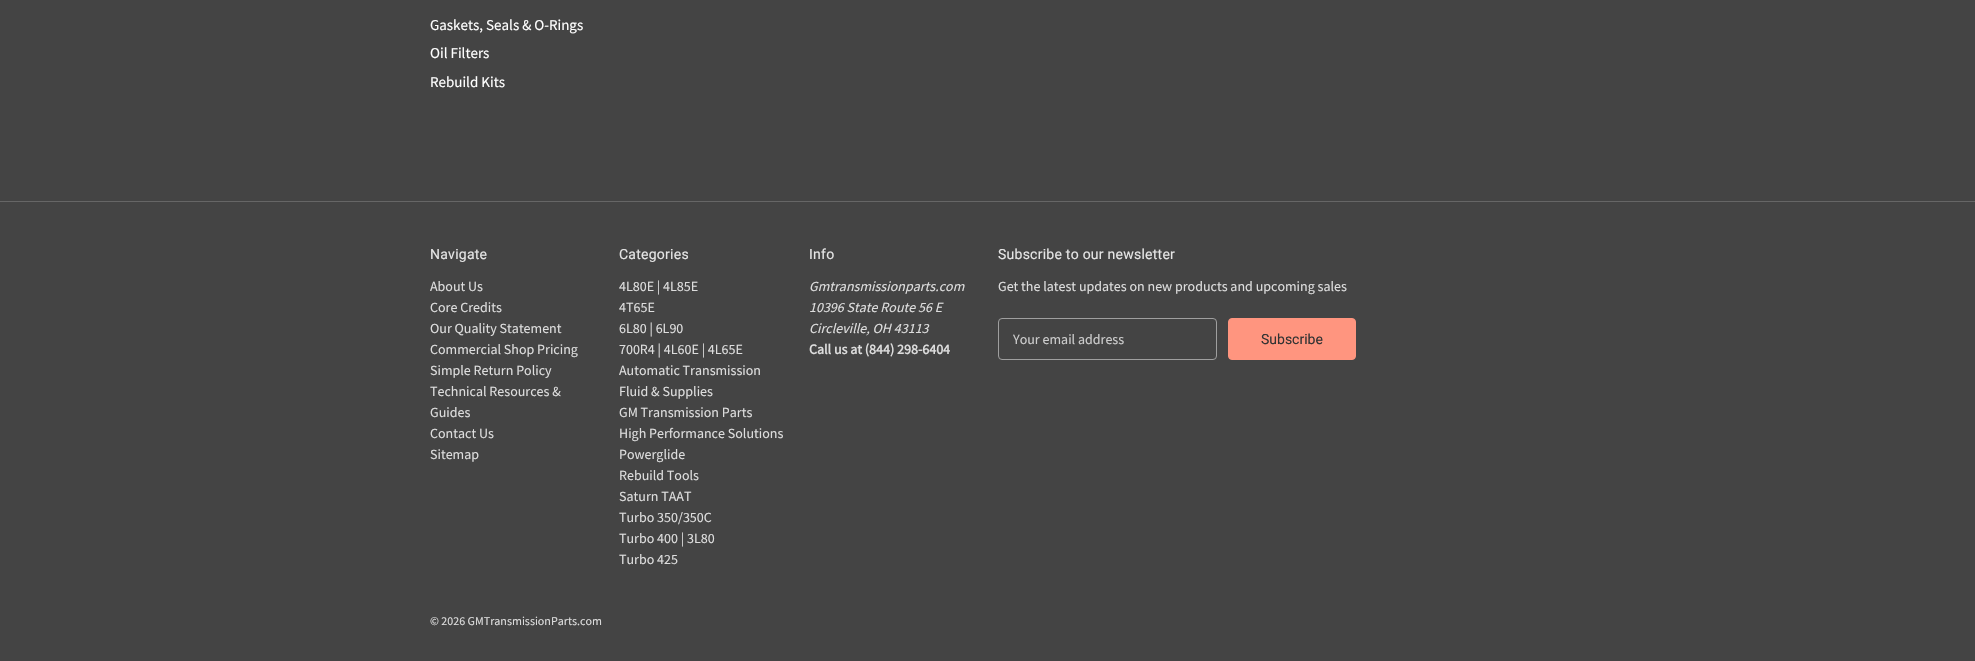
void draw(SkCanvas* canvas) {
	SkPaint paint;
	paint.setAntiAlias(true);
	auto spacedText = [&](const char* s, float x, float y, const SkFont& font, const SkPaint& ink, float letter, float word) {
		std::vector<SkGlyphID> glyphs(font.countText(s, strlen(s), SkTextEncoding::kUTF8));
		std::vector<float> xs(glyphs.size());
		font.textToGlyphs(s, strlen(s), SkTextEncoding::kUTF8, glyphs);
		font.getXPos(glyphs, xs, x);
		float extra = 0;
		for (size_t i = 0; i < glyphs.size(); i++) {
			xs[i] += extra;
			extra += letter + word * (glyphs[i] == font.unicharToGlyph(' '));
		}
		canvas->drawTextBlob(SkTextBlob::MakeFromPosHGlyphs(glyphs, xs, y, font), 0, 0, ink);
	};
	canvas->clear(0xff444444);
	SkFont f1(fontMgr->matchFamilyStyle("Source Sans Pro", SkFontStyle::Normal()), 15);
	f1.setSubpixel(true);
	paint.setColor(0xffffffff);
	canvas->drawString("Gaskets, Seals & O-Rings", 430, 30, f1, paint);
	canvas->drawString("Oil Filters", 430, 58, f1, paint);
	canvas->drawString("Rebuild Kits", 430, 87, f1, paint);
	paint.setColor(0xff666666);
	canvas->drawRect(SkRect::MakeXYWH(0, 201, 1975, 1), paint);
	SkFont f2(fontMgr->matchFamilyStyle("Roboto", SkFontStyle::Normal()), 14);
	f2.setSubpixel(true);
	paint.setColor(0xffe5e5e5);
	spacedText("Navigate", 430, 259, f2, paint, 0.25, 0);
	SkFont f3(fontMgr->matchFamilyStyle("Source Sans Pro", SkFontStyle::Normal()), 14);
	f3.setSubpixel(true);
	paint.setColor(0xffdddddd);
	canvas->drawString("About Us", 430, 291, f3, paint);
	canvas->drawString("Core Credits", 430, 312, f3, paint);
	canvas->drawString("Our Quality Statement", 430, 333, f3, paint);
	canvas->drawString("Commercial Shop Pricing", 430, 354, f3, paint);
	canvas->drawString("Simple Return Policy", 430, 375, f3, paint);
	canvas->drawString("Technical Resources &", 430, 396, f3, paint);
	canvas->drawString("Guides", 430, 417, f3, paint);
	canvas->drawString("Contact Us", 430, 438, f3, paint);
	canvas->drawString("Sitemap", 430, 459, f3, paint);
	paint.setColor(0xffe5e5e5);
	spacedText("Categories", 619, 259, f2, paint, 0.25, 0);
	paint.setColor(0xffdddddd);
	canvas->drawString("4L80E | 4L85E", 619, 291, f3, paint);
	canvas->drawString("4T65E", 619, 312, f3, paint);
	canvas->drawString("6L80 | 6L90", 619, 333, f3, paint);
	canvas->drawString("700R4 | 4L60E | 4L65E", 619, 354, f3, paint);
	canvas->drawString("Automatic Transmission", 619, 375, f3, paint);
	canvas->drawString("Fluid & Supplies", 619, 396, f3, paint);
	canvas->drawString("GM Transmission Parts", 619, 417, f3, paint);
	canvas->drawString("High Performance Solutions", 619, 438, f3, paint);
	canvas->drawString("Powerglide", 619, 459, f3, paint);
	canvas->drawString("Rebuild Tools", 619, 480, f3, paint);
	canvas->drawString("Saturn TAAT", 619, 501, f3, paint);
	canvas->drawString("Turbo 350/350C", 619, 522, f3, paint);
	canvas->drawString("Turbo 400 | 3L80", 619, 543, f3, paint);
	canvas->drawString("Turbo 425", 619, 564, f3, paint);
	paint.setColor(0xffe5e5e5);
	spacedText("Info", 809, 259, f2, paint, 0.25, 0);
	SkFont f4(fontMgr->matchFamilyStyle("Source Sans Pro", SkFontStyle::Italic()), 14);
	f4.setSubpixel(true);
	paint.setColor(0xffdddddd);
	canvas->drawString("Gmtransmissionparts.com", 809, 291, f4, paint);
	canvas->drawString("10396 State Route 56 E", 809, 312, f4, paint);
	canvas->drawString("Circleville, OH 43113", 809, 333, f4, paint);
	SkFont f5(fontMgr->matchFamilyStyle("Source Sans Pro", SkFontStyle::Bold()), 14);
	f5.setSubpixel(true);
	canvas->drawString("Call us at (844) 298-6404", 809, 354, f5, paint);
	paint.setColor(0xffe5e5e5);
	spacedText("Subscribe to our newsletter", 998, 259, f2, paint, 0.25, 0);
	paint.setColor(0xffdddddd);
	canvas->drawString("Get the latest updates on new products and upcoming sales", 998, 291, f3, paint);
	paint.setStroke(true);
	paint.setStrokeWidth(1);
	paint.setColor(0xff9f9f9f);
	canvas->drawRoundRect(SkRect::MakeXYWH(998.5, 318.5, 218, 41), 3.5, 3.5, paint);
	paint.setStroke(false);
	paint.setColor(0xffcccccc);
	canvas->drawString("Your email address", 1013, 344, f3, paint);
	paint.setColor(0xffff957f);
	canvas->drawRoundRect(SkRect::MakeXYWH(1228.5, 318.5, 127, 41), 3.5, 3.5, paint);
	paint.setStroke(true);
	canvas->drawRoundRect(SkRect::MakeXYWH(1228.5, 318.5, 127, 41), 3.5, 3.5, paint);
	paint.setStroke(false);
	paint.setColor(0xff333333);
	canvas->drawString("Subscribe", 1261, 344, f2, paint);
	SkFont f6(fontMgr->matchFamilyStyle("Source Sans Pro", SkFontStyle::Normal()), 12);
	f6.setSubpixel(true);
	paint.setColor(0xffdddddd);
	canvas->drawString("© 2026 GMTransmissionParts.com", 430, 625, f6, paint);
}
